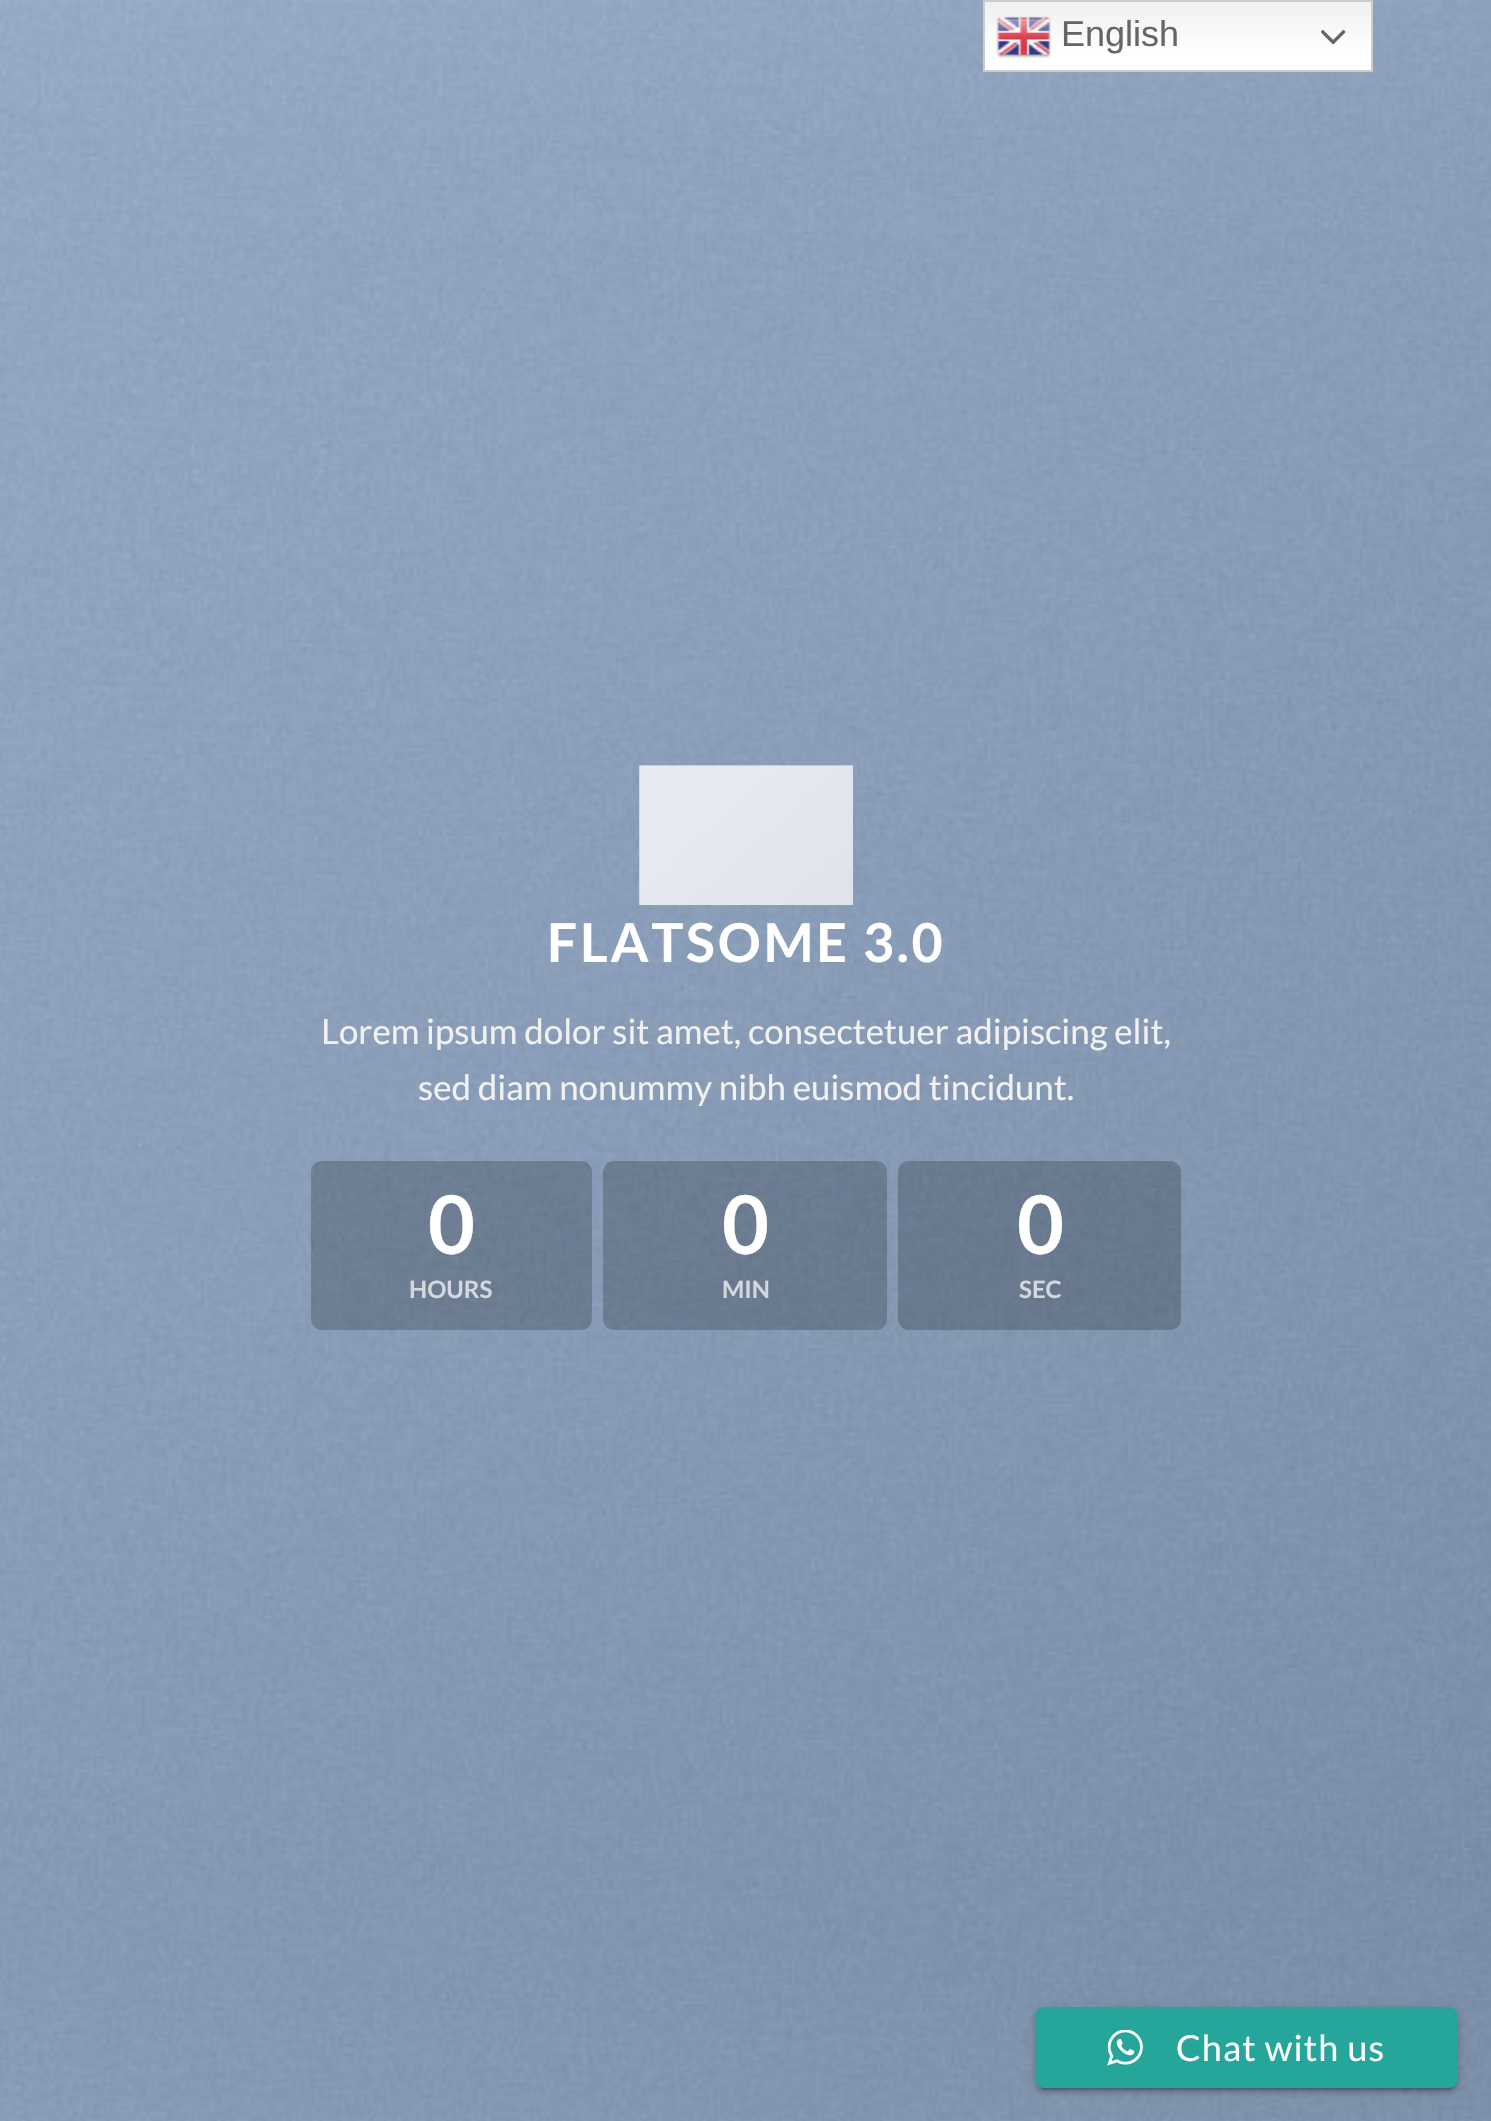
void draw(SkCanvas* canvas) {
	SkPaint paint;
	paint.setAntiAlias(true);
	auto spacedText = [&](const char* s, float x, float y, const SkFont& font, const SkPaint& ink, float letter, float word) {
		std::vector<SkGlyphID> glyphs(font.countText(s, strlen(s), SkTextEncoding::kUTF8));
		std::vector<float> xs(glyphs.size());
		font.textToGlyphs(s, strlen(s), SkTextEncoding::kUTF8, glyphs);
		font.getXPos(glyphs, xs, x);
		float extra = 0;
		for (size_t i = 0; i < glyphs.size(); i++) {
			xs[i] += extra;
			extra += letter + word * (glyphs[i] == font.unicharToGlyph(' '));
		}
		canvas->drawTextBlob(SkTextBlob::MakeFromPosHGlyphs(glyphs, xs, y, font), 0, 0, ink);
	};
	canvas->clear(0xffffffff);
	canvas->drawImageRect(SkImages::DeferredFromEncodedData(SkData::MakeFromFileName("img3.png")), SkRect::MakeXYWH(0, 0, 1491, 2121), SkSamplingOptions());
	{
		const SkColor colors[] = {0xffefefef, 0xffffffff};
		const float stops[] = {0, 0.7};
		const SkPoint ends[] = {{1178, 0}, {1178, 72}};
		paint.setShader(SkGradientShader::MakeLinear(ends, colors, stops, 2, SkTileMode::kClamp));
		paint.setAlpha(255);
	}
	canvas->drawRect(SkRect::MakeXYWH(985, 2, 386, 68), paint);
	paint.setStroke(true);
	paint.setStrokeWidth(2);
	paint.setShader(nullptr);
	paint.setColor(0xffcccccc);
	canvas->drawRect(SkRect::MakeXYWH(984, 1, 388, 70), paint);
	canvas->drawImageRect(SkImages::DeferredFromEncodedData(SkData::MakeFromFileName("img1.png")), SkRect::MakeXYWH(996, 16, 55, 42), SkSamplingOptions());
	SkFont f1(fontMgr->matchFamilyStyle("Liberation Sans", SkFontStyle::Normal()), 36);
	f1.setSubpixel(true);
	paint.setStroke(false);
	paint.setColor(0xff666666);
	canvas->drawString("English", 1061, 46, f1, paint);
	canvas->drawImageRect(SkImages::DeferredFromEncodedData(SkData::MakeFromFileName("img2.png")), SkRect::MakeXYWH(1321, 30, 25, 15), SkSamplingOptions());
	canvas->drawImageRect(SkImages::DeferredFromEncodedData(SkData::MakeFromFileName("img4.png")), SkRect::MakeXYWH(639, 765, 214, 140), SkSamplingOptions());
	SkFont f2(fontMgr->matchFamilyStyle("Lato", SkFontStyle::Bold()), 53.75);
	f2.setSubpixel(true);
	paint.setColor(0xffffffff);
	spacedText("FLATSOME 3.0", 547, 962, f2, paint, 2.75, 0);
	SkFont f3(fontMgr->matchFamilyStyle("Lato", SkFontStyle::Normal()), 34.9);
	f3.setSubpixel(true);
	paint.setColor(0xfff1f1f1);
	canvas->drawString("Lorem ipsum dolor sit amet, consectetuer adipiscing elit,", 321, 1044, f3, paint);
	canvas->drawString("sed diam nonummy nibh euismod tincidunt.", 418, 1100, f3, paint);
	paint.setColor(0x33000000);
	canvas->drawRoundRect(SkRect::MakeXYWH(311, 1161, 281, 169), 11, 11, paint);
	SkFont f4(fontMgr->matchFamilyStyle("Lato", SkFontStyle::Bold()), 81);
	f4.setSubpixel(true);
	paint.setColor(0xffffffff);
	canvas->drawString("0", 428, 1254, f4, paint);
	SkFont f5(fontMgr->matchFamilyStyle("Lato", SkFontStyle::Bold()), 24);
	f5.setSubpixel(true);
	paint.setColor(0xffd3d8de);
	canvas->drawString("HOURS", 409, 1298, f5, paint);
	paint.setColor(0x33000000);
	canvas->drawRoundRect(SkRect::MakeXYWH(603, 1161, 284, 169), 11, 11, paint);
	paint.setColor(0xffffffff);
	canvas->drawString("0", 722, 1254, f4, paint);
	paint.setColor(0xffd3d8de);
	canvas->drawString("MIN", 722, 1298, f5, paint);
	paint.setColor(0x33000000);
	canvas->drawRoundRect(SkRect::MakeXYWH(898, 1161, 283, 169), 11, 11, paint);
	paint.setColor(0xffffffff);
	canvas->drawString("0", 1017, 1254, f4, paint);
	paint.setColor(0xffd3d8de);
	canvas->drawString("SEC", 1019, 1298, f5, paint);
	paint.setColor(0x33000000);
	paint.setMaskFilter(SkMaskFilter::MakeBlur(kNormal_SkBlurStyle, 1));
	canvas->drawRoundRect(SkRect::MakeXYWH(1040, 2018, 414, 72), 5, 5, paint);
	paint.setMaskFilter(nullptr);
	paint.setColor(0x1f000000);
	paint.setMaskFilter(SkMaskFilter::MakeBlur(kNormal_SkBlurStyle, 5.5));
	canvas->drawRoundRect(SkRect::MakeXYWH(1035, 2009, 423, 81), 9, 9, paint);
	paint.setMaskFilter(nullptr);
	paint.setColor(0x24000000);
	paint.setMaskFilter(SkMaskFilter::MakeBlur(kNormal_SkBlurStyle, 2));
	canvas->drawRoundRect(SkRect::MakeXYWH(1035, 2012, 423, 81), 9, 9, paint);
	paint.setMaskFilter(nullptr);
	paint.setColor(0xff26a69a);
	canvas->drawRoundRect(SkRect::MakeXYWH(1035, 2007, 423, 81), 9, 9, paint);
	canvas->drawImageRect(SkImages::DeferredFromEncodedData(SkData::MakeFromFileName("img5.png")), SkRect::MakeXYWH(1107, 2030, 36, 36), SkSamplingOptions());
	SkFont f6(fontMgr->matchFamilyStyle("Lato", SkFontStyle::Normal()), 36);
	f6.setSubpixel(true);
	paint.setColor(0xffffffff);
	spacedText("Chat with us", 1176, 2061, f6, paint, 1.1, 0);
}
